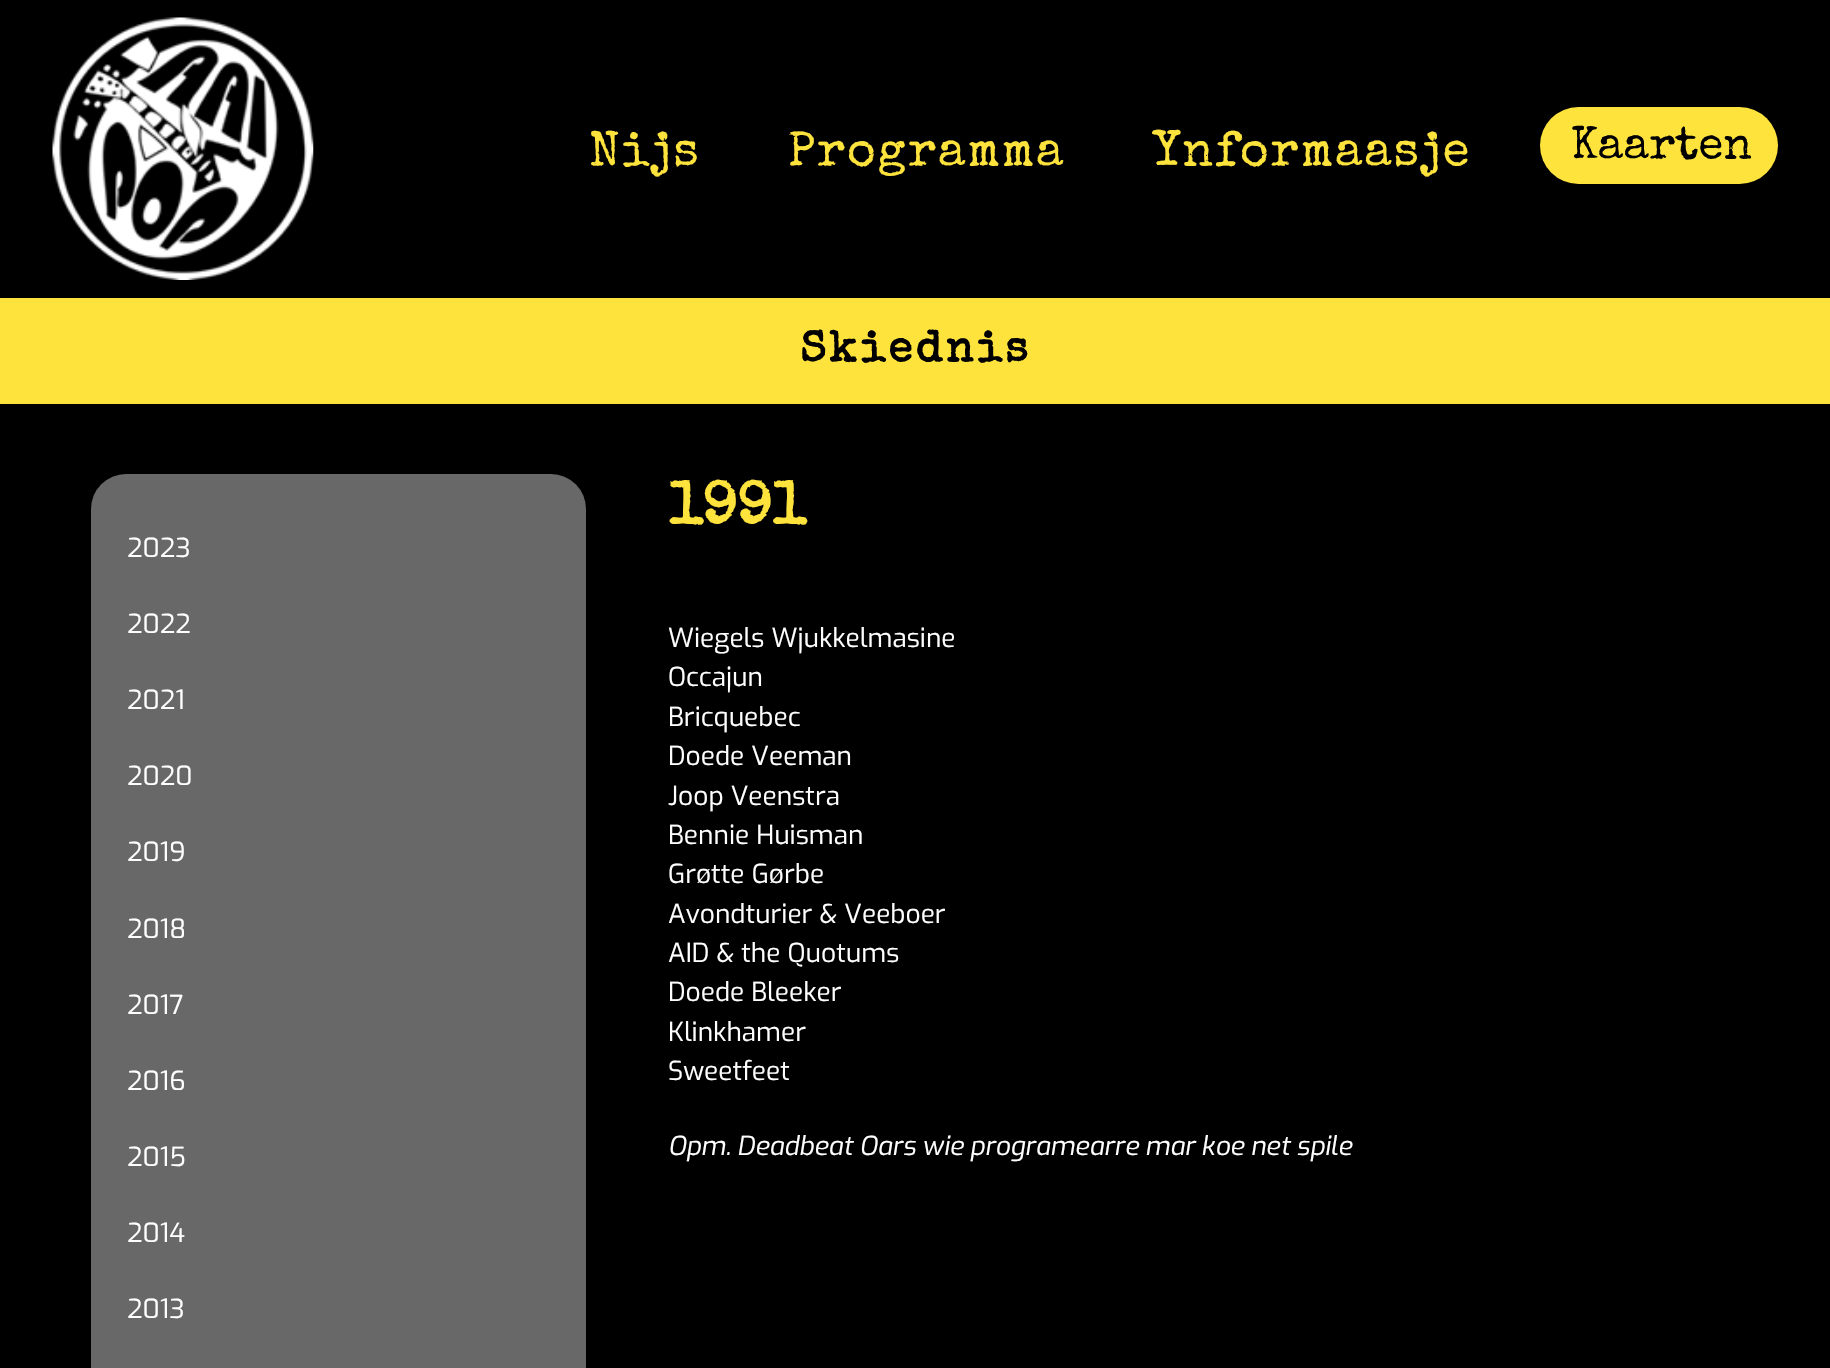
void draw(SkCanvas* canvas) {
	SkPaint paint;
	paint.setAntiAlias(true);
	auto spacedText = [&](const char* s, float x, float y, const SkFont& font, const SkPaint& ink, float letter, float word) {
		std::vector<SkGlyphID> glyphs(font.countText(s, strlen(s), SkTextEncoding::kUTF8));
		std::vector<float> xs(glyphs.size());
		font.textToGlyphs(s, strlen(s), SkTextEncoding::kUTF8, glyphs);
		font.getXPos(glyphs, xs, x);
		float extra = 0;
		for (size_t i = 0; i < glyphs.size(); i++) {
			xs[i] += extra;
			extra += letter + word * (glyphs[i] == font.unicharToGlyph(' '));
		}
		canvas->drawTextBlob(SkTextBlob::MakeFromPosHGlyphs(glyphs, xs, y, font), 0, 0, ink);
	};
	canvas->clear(0xff000000);
	canvas->drawImageRect(SkImages::DeferredFromEncodedData(SkData::MakeFromFileName("img1.png")), SkRect::MakeXYWH(52, 17, 262, 263), SkSamplingOptions());
	SkFont f1(fontMgr->matchFamilyStyle("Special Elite", SkFontStyle::Normal()), 49);
	f1.setSubpixel(true);
	paint.setColor(0xffffe33d);
	spacedText("Nijs", 589, 165, f1, paint, 1.75, 0);
	spacedText("Programma", 788, 165, f1, paint, 1.75, 0);
	spacedText("Ynformaasje", 1153, 165, f1, paint, 1.75, 0);
	canvas->drawRoundRect(SkRect::MakeXYWH(1540, 107, 238, 77), 38.5, 38.5, paint);
	SkFont f2(fontMgr->matchFamilyStyle("Special Elite", SkFontStyle::Normal()), 45.5);
	f2.setSubpixel(true);
	paint.setColor(0xff000000);
	canvas->drawString("Kaarten", 1571, 158, f2, paint);
	paint.setColor(0xfffee33c);
	canvas->drawRect(SkRect::MakeXYWH(0, 298, 1830, 106), paint);
	SkFont f3(fontMgr->matchFamilyStyle("Special Elite", SkFontStyle::Bold()), 43.75);
	f3.setSubpixel(true);
	paint.setColor(0xff000000);
	spacedText("Skiednis", 800, 361, f3, paint, 3.5, 0);
	paint.setColor(0xff686868);
	canvas->drawRoundRect(SkRect::MakeXYWH(91, 474, 495, 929), 35, 35, paint);
	SkFont f4(fontMgr->matchFamilyStyle("Exo", SkFontStyle::Normal()), 26.25);
	f4.setSubpixel(true);
	paint.setColor(0xffffffff);
	canvas->drawString("2023", 127, 557, f4, paint);
	canvas->drawString("2022", 127, 633, f4, paint);
	canvas->drawString("2021", 127, 709, f4, paint);
	canvas->drawString("2020", 127, 785, f4, paint);
	canvas->drawString("2019", 127, 861, f4, paint);
	canvas->drawString("2018", 127, 938, f4, paint);
	canvas->drawString("2017", 127, 1014, f4, paint);
	canvas->drawString("2016", 127, 1090, f4, paint);
	canvas->drawString("2015", 127, 1166, f4, paint);
	canvas->drawString("2014", 127, 1242, f4, paint);
	canvas->drawString("2013", 127, 1318, f4, paint);
	SkFont f5(fontMgr->matchFamilyStyle("Special Elite", SkFontStyle::Bold()), 59.5);
	f5.setSubpixel(true);
	paint.setColor(0xffffe33d);
	canvas->drawString("1991", 668, 524, f5, paint);
	paint.setColor(0xffffffff);
	canvas->drawString("Wiegels Wjukkelmasine", 668, 647, f4, paint);
	canvas->drawString("Occajun", 668, 686, f4, paint);
	canvas->drawString("Bricquebec", 668, 726, f4, paint);
	canvas->drawString("Doede Veeman", 668, 765, f4, paint);
	canvas->drawString("Joop Veenstra", 668, 805, f4, paint);
	canvas->drawString("Bennie Huisman", 668, 844, f4, paint);
	canvas->drawString("Grøtte Gørbe", 668, 883, f4, paint);
	canvas->drawString("Avondturier & Veeboer", 668, 923, f4, paint);
	canvas->drawString("AID & the Quotums", 668, 962, f4, paint);
	canvas->drawString("Doede Bleeker", 668, 1001, f4, paint);
	canvas->drawString("Klinkhamer", 668, 1041, f4, paint);
	canvas->drawString("Sweetfeet", 668, 1080, f4, paint);
	SkFont f6(fontMgr->matchFamilyStyle("Exo", SkFontStyle::Italic()), 26.25);
	f6.setSubpixel(true);
	canvas->drawString("Opm. Deadbeat Oars wie programearre mar koe net spile", 668, 1155, f6, paint);
}
